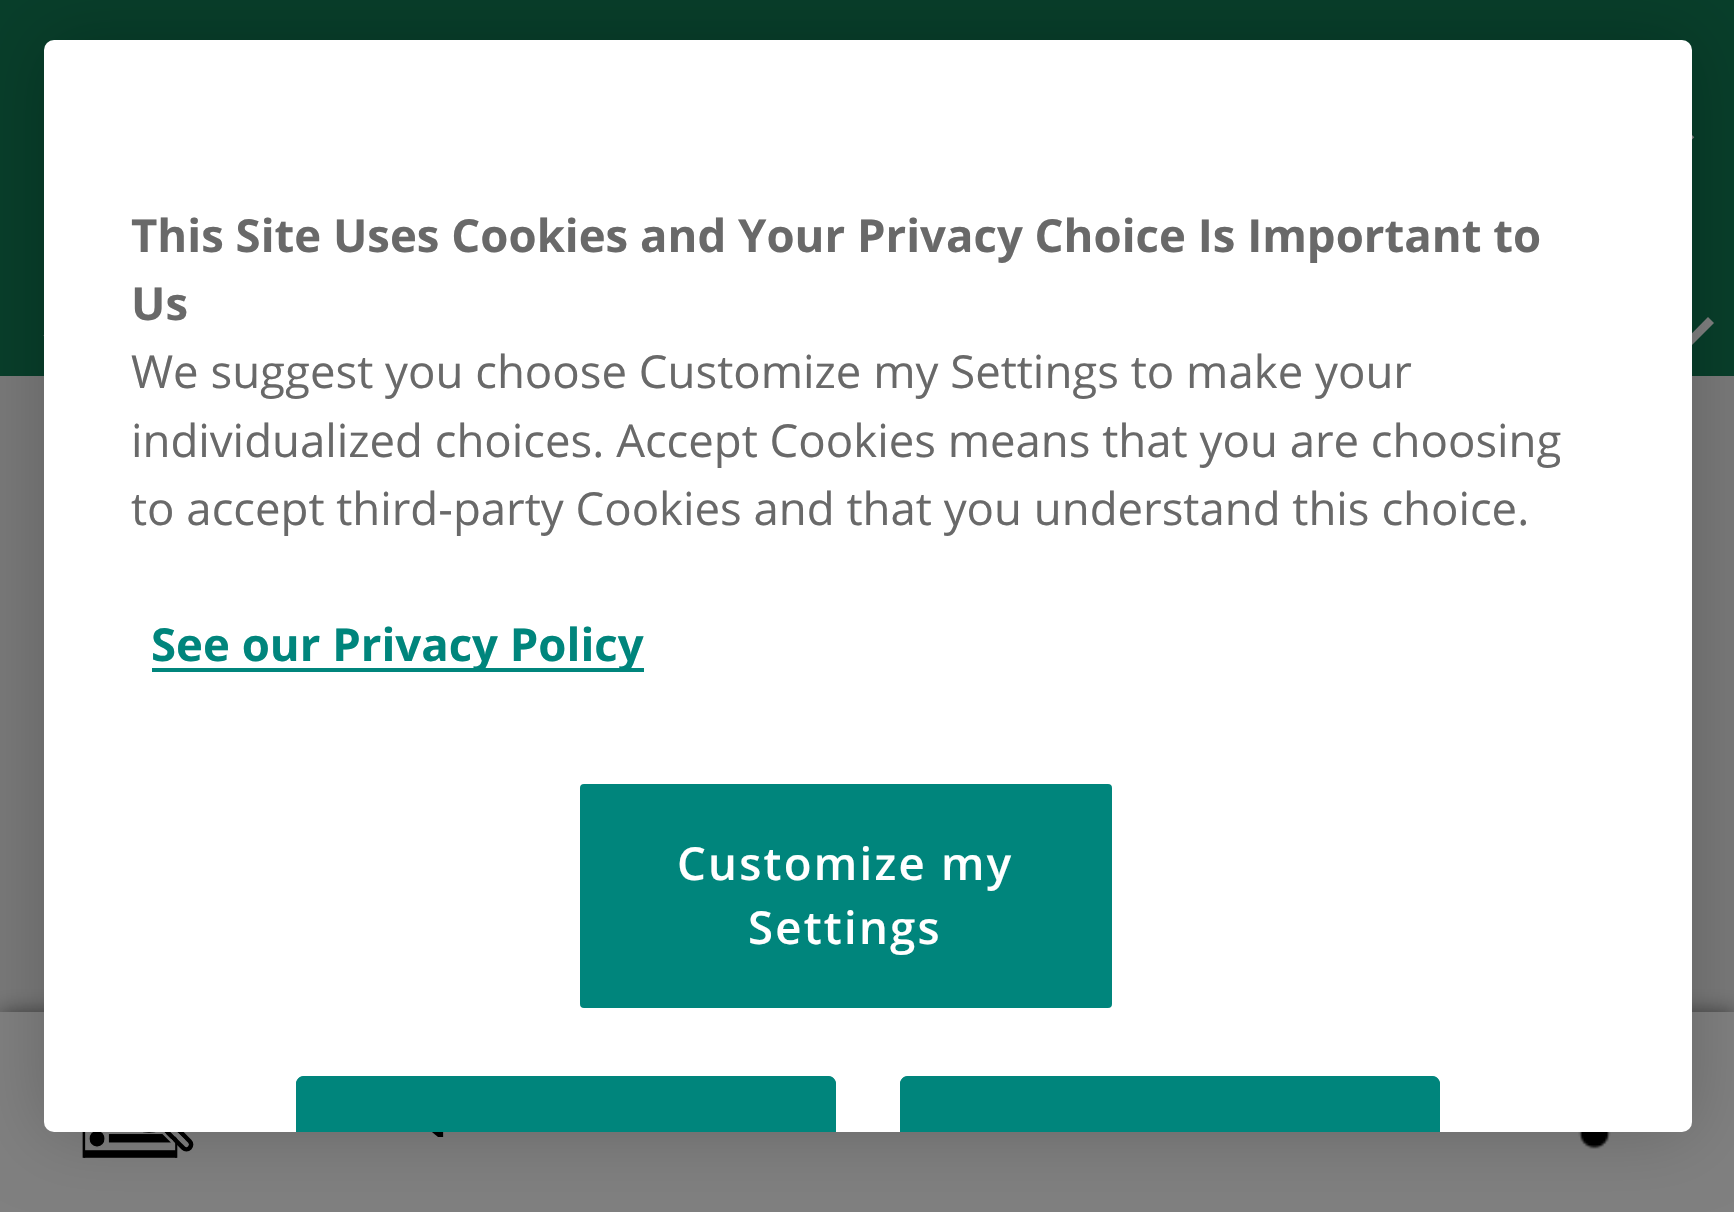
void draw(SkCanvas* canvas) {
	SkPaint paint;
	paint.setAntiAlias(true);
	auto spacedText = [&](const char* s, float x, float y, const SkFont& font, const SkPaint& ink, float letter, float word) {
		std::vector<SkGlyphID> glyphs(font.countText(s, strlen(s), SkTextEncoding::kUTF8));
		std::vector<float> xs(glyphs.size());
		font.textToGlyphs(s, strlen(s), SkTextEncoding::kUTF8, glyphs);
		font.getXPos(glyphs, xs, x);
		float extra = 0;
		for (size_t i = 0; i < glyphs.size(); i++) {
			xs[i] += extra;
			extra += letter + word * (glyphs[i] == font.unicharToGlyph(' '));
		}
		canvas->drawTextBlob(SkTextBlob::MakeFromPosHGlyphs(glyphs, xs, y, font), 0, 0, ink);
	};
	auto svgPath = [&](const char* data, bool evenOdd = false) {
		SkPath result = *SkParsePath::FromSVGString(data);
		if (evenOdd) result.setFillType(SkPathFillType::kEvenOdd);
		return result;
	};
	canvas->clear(0xff797979);
	paint.setColor(0xff083e2a);
	canvas->drawRect(SkRect::MakeXYWH(0, 0, 1734, 376), paint);
	paint.setStroke(true);
	paint.setStrokeWidth(6.4);
	paint.setColor(0xff808080);
	canvas->drawPath(svgPath("M1692 139.5L1668.5 116"), paint);
	canvas->drawImageRect(SkImages::DeferredFromEncodedData(SkData::MakeFromFileName("img1.png")), SkRect::MakeXYWH(43, 335, 1, 1), SkSamplingOptions());
	paint.setStroke(false);
	canvas->drawPath(svgPath("M1708 317L1714 323L1680 357L1674.5 351Z"), paint);
	paint.setColor(0x80000000);
	paint.setMaskFilter(SkMaskFilter::MakeBlur(kNormal_SkBlurStyle, 10));
	canvas->drawRect(SkRect::MakeXYWH(0, 1012, 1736, 200), paint);
	paint.setMaskFilter(nullptr);
	paint.setColor(0xff808080);
	canvas->drawRect(SkRect::MakeXYWH(0, 1012, 1734, 200), paint);
	canvas->drawImageRect(SkImages::DeferredFromEncodedData(SkData::MakeFromFileName("img2.png")), SkRect::MakeXYWH(82, 1132, 112, 26), SkSamplingOptions());
	canvas->drawImageRect(SkImages::DeferredFromEncodedData(SkData::MakeFromFileName("img3.png")), SkRect::MakeXYWH(405, 1132, 81, 5), SkSamplingOptions());
	canvas->drawImageRect(SkImages::DeferredFromEncodedData(SkData::MakeFromFileName("img4.png")), SkRect::MakeXYWH(1578, 1132, 33, 17), SkSamplingOptions());
	canvas->save();
	canvas->clipPath(svgPath("M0 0H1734V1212H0ZM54 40H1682C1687.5 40 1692 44.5 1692 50V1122C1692 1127.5 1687.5 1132 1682 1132H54C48.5 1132 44 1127.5 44 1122V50C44 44.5 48.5 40 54 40Z", true), true);
	paint.setColor(0x33000000);
	paint.setMaskFilter(SkMaskFilter::MakeBlur(kNormal_SkBlurStyle, 36));
	canvas->drawRoundRect(SkRect::MakeXYWH(44, 40, 1648, 1092), 10, 10, paint);
	paint.setMaskFilter(nullptr);
	canvas->restore();
	paint.setColor(0xffffffff);
	canvas->drawRoundRect(SkRect::MakeXYWH(44, 40, 1648, 1092), 10, 10, paint);
	SkFont f1(fontMgr->matchFamilyStyle("Open Sans", SkFontStyle::Bold()), 45.5);
	f1.setSubpixel(true);
	paint.setColor(0xff696969);
	canvas->drawString("This Site Uses Cookies and Your Privacy Choice Is Important to", 131, 252, f1, paint);
	canvas->drawString("Us", 131, 320, f1, paint);
	SkFont f2(fontMgr->matchFamilyStyle("Open Sans", SkFontStyle::Normal()), 45.5);
	f2.setSubpixel(true);
	canvas->drawString("We suggest you choose Customize my Settings to make your", 131, 388, f2, paint);
	canvas->drawString("individualized choices. Accept Cookies means that you are choosing", 131, 457, f2, paint);
	canvas->drawString("to accept third-party Cookies and that you understand this choice.", 131, 525, f2, paint);
	paint.setColor(0xff00857c);
	canvas->drawRect(SkRect::MakeXYWH(152, 668, 492, 4), paint);
	canvas->drawString("See our Privacy Policy", 151, 661, f1, paint);
	canvas->drawRoundRect(SkRect::MakeXYWH(578, 782, 536, 228), 6, 6, paint);
	paint.setStroke(true);
	paint.setStrokeWidth(4);
	paint.setColor(0xffffffff);
	canvas->drawRoundRect(SkRect::MakeXYWH(578, 782, 536, 228), 6, 6, paint);
	SkFont f3(fontMgr->matchFamilyStyle("Open Sans", SkFontStyle(600, SkFontStyle::kNormal_Width, SkFontStyle::kUpright_Slant)), 45.5);
	f3.setSubpixel(true);
	paint.setStroke(false);
	spacedText("Customize my", 677, 880, f3, paint, 2.25, 0);
	spacedText("Settings", 748, 944, f3, paint, 2.25, 0);
	paint.setColor(0xff00857c);
	canvas->drawPath(svgPath("M304 1076H828C832.5 1076 836 1079.5 836 1084V1132H296V1084C296 1079.5 299.5 1076 304 1076Z"), paint);
	canvas->drawPath(svgPath("M304 1076C300 1076 296 1080 296 1084V1132H300V1084C300 1082 302 1080 304 1080H828C830 1080 832 1082 832 1084V1132H836V1084C836 1080 832 1076 828 1076Z"), paint);
	canvas->drawPath(svgPath("M908 1076H1432C1436.5 1076 1440 1079.5 1440 1084V1132H900V1084C900 1079.5 903.5 1076 908 1076Z"), paint);
	canvas->drawPath(svgPath("M908 1076C904 1076 900 1080 900 1084V1132H904V1084C904 1082 906 1080 908 1080H1432C1434 1080 1436 1082 1436 1084V1132H1440V1084C1440 1080 1436 1076 1432 1076Z"), paint);
}
